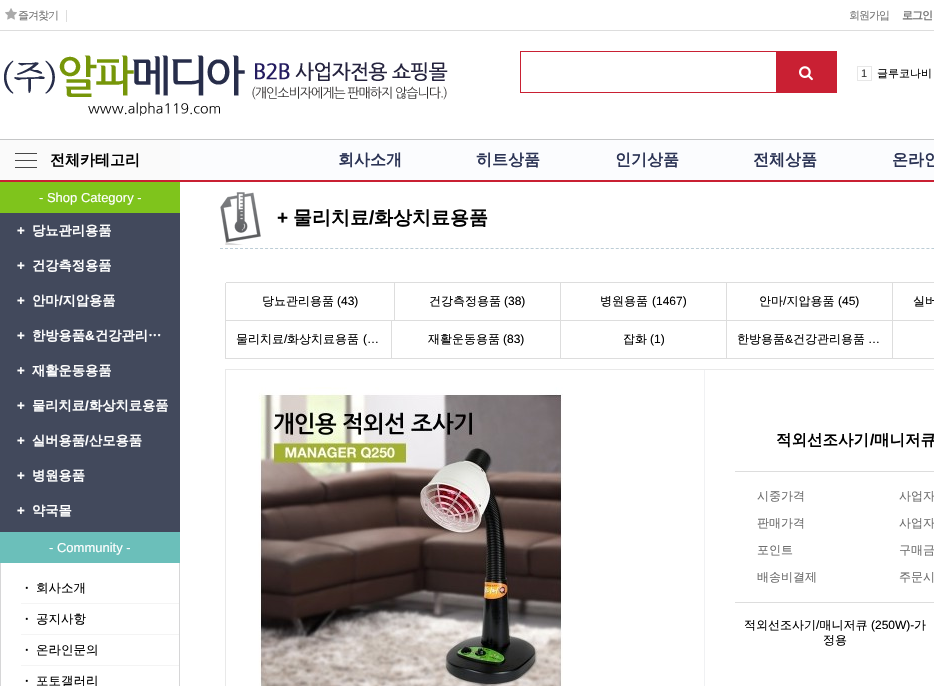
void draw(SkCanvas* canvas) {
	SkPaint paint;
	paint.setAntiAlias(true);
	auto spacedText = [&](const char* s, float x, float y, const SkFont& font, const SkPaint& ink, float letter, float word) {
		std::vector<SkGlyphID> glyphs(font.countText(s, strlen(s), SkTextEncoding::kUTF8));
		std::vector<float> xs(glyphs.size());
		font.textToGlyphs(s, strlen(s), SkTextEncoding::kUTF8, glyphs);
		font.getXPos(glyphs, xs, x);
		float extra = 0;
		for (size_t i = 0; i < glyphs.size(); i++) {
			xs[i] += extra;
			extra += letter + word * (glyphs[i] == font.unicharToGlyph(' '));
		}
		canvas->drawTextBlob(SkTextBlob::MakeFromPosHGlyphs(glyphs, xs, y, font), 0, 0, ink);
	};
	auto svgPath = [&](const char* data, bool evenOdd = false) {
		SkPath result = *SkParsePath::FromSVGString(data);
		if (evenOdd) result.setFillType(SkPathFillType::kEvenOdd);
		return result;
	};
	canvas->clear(0xffffffff);
	paint.setColor(0xffc92033);
	canvas->drawRect(SkRect::MakeXYWH(0, 180, 934, 2), paint);
	paint.setColor(0xffdddddd);
	canvas->drawRect(SkRect::MakeXYWH(0, 30, 934, 1), paint);
	canvas->drawImageRect(SkImages::DeferredFromEncodedData(SkData::MakeFromFileName("img1.png")), SkRect::MakeXYWH(5, 8, 12, 12), SkSamplingOptions());
	SkFont f1(fontMgr->matchFamilyStyle("WenQuanYi Zen Hei", SkFontStyle(500, SkFontStyle::kNormal_Width, SkFontStyle::kUpright_Slant)), 11);
	f1.setSubpixel(true);
	paint.setColor(0xff797979);
	spacedText("즐겨찾기", 18, 19, f1, paint, -1, 0);
	paint.setColor(0xffdddddd);
	canvas->drawRect(SkRect::MakeXYWH(66, 10, 1, 12), paint);
	paint.setColor(0xff797979);
	spacedText("회원가입", 849, 19, f1, paint, -1, 0);
	SkFont f2(fontMgr->matchFamilyStyle("WenQuanYi Zen Hei", SkFontStyle::Bold()), 11);
	f2.setSubpixel(true);
	spacedText("로그인", 902, 19, f2, paint, -1, 0);
	canvas->drawImageRect(SkImages::DeferredFromEncodedData(SkData::MakeFromFileName("img2.png")), SkRect::MakeXYWH(4, 55, 444, 61), SkSamplingOptions());
	paint.setStroke(true);
	paint.setStrokeWidth(1);
	paint.setColor(0xffc92033);
	canvas->drawRect(SkRect::MakeXYWH(520.5, 51.5, 316, 41), paint);
	paint.setStroke(false);
	canvas->drawRect(SkRect::MakeXYWH(776, 52, 60, 40), paint);
	canvas->drawImageRect(SkImages::DeferredFromEncodedData(SkData::MakeFromFileName("img3.png")), SkRect::MakeXYWH(799, 66, 14, 15), SkSamplingOptions());
	paint.setStroke(true);
	paint.setColor(0xffe7e7e7);
	canvas->drawRect(SkRect::MakeXYWH(857.5, 66.5, 14, 14), paint);
	SkFont f3(fontMgr->matchFamilyStyle("Liberation Sans", SkFontStyle::Normal()), 11);
	f3.setSubpixel(true);
	paint.setStroke(false);
	paint.setColor(0xff333333);
	canvas->drawString("1", 861, 77, f3, paint);
	paint.setColor(0xff000000);
	canvas->drawString("글루코나비", 877, 77, f1, paint);
	paint.setColor(0xfffbfcfe);
	canvas->drawRect(SkRect::MakeXYWH(180, 140, 754, 40), paint);
	paint.setColor(0xffc5c6c7);
	canvas->drawRect(SkRect::MakeXYWH(0, 139, 934, 1), paint);
	paint.setColor(0xfffafafa);
	canvas->drawRect(SkRect::MakeXYWH(0, 140, 180, 40), paint);
	canvas->drawImageRect(SkImages::DeferredFromEncodedData(SkData::MakeFromFileName("img4.png")), SkRect::MakeXYWH(15, 153, 22, 15), SkSamplingOptions());
	SkFont f4(fontMgr->matchFamilyStyle("WenQuanYi Zen Hei", SkFontStyle::Bold()), 15);
	f4.setSubpixel(true);
	paint.setColor(0xff000000);
	canvas->drawString("전체카테고리", 50, 165, f4, paint);
	SkFont f5(fontMgr->matchFamilyStyle("WenQuanYi Zen Hei", SkFontStyle::Bold()), 16);
	f5.setSubpixel(true);
	paint.setColor(0xff2c3455);
	canvas->drawString("회사소개", 338, 165, f5, paint);
	canvas->drawString("히트상품", 476, 165, f5, paint);
	canvas->drawString("인기상품", 615, 165, f5, paint);
	canvas->drawString("전체상품", 753, 165, f5, paint);
	canvas->drawString("온라인", 892, 165, f5, paint);
	paint.setColor(0xff42495c);
	canvas->drawRect(SkRect::MakeXYWH(0, 213, 180, 319), paint);
	paint.setColor(0xff7fc41c);
	canvas->drawRect(SkRect::MakeXYWH(0, 182, 180, 31), paint);
	SkFont f6(fontMgr->matchFamilyStyle("Liberation Sans", SkFontStyle::Normal()), 13);
	f6.setSubpixel(true);
	paint.setColor(0xffffffff);
	canvas->drawString("- Shop Category -", 39, 202, f6, paint);
	SkFont f7(fontMgr->matchFamilyStyle("Liberation Sans", SkFontStyle::Bold()), 13.25);
	f7.setSubpixel(true);
	canvas->drawString("+", 17, 235, f7, paint);
	SkFont f8(fontMgr->matchFamilyStyle("WenQuanYi Zen Hei", SkFontStyle::Bold()), 13.25);
	f8.setSubpixel(true);
	canvas->drawString("당뇨관리용품", 32, 235, f8, paint);
	canvas->drawString("+", 17, 270, f7, paint);
	canvas->drawString("건강측정용품", 32, 270, f8, paint);
	canvas->drawString("안마 지압용품", 32, 305, f8, paint);
	canvas->drawString("+", 17, 305, f7, paint);
	canvas->drawString("/", 59, 305, f7, paint);
	canvas->drawString("+", 17, 340, f7, paint);
	canvas->drawString("한방용품", 32, 340, f8, paint);
	canvas->drawString("&", 85, 340, f7, paint);
	canvas->drawString("건강관리…", 95, 340, f8, paint);
	canvas->drawString("+", 17, 375, f7, paint);
	canvas->drawString("재활운동용품", 32, 375, f8, paint);
	canvas->drawString("물리치료 화상치료용품", 32, 410, f8, paint);
	canvas->drawString("+", 17, 410, f7, paint);
	canvas->drawString("/", 85, 410, f7, paint);
	canvas->drawString("실버용품 산모용품", 32, 445, f8, paint);
	canvas->drawString("+", 17, 445, f7, paint);
	canvas->drawString("/", 85, 445, f7, paint);
	canvas->drawString("+", 17, 480, f7, paint);
	canvas->drawString("병원용품", 32, 480, f8, paint);
	canvas->drawString("+", 17, 515, f7, paint);
	canvas->drawString("약국몰", 32, 515, f8, paint);
	paint.setColor(0xff6bbfba);
	canvas->drawRect(SkRect::MakeXYWH(0, 532, 180, 31), paint);
	paint.setColor(0xffffffff);
	canvas->drawString("- Community -", 49, 552, f6, paint);
	paint.setColor(0xffd6d6d7);
	canvas->drawRect(SkRect::MakeXYWH(179, 563, 1, 123), paint);
	canvas->drawRect(SkRect::MakeXYWH(0, 563, 1, 123), paint);
	paint.setColor(0xfff4f4f4);
	canvas->drawRect(SkRect::MakeXYWH(21, 603, 158, 1), paint);
	SkFont f9(fontMgr->matchFamilyStyle("Liberation Sans", SkFontStyle::Bold()), 12.5);
	f9.setSubpixel(true);
	paint.setColor(0xff000000);
	canvas->drawString("·", 25, 592, f9, paint);
	SkFont f10(fontMgr->matchFamilyStyle("WenQuanYi Zen Hei", SkFontStyle(500, SkFontStyle::kNormal_Width, SkFontStyle::kUpright_Slant)), 12.5);
	f10.setSubpixel(true);
	canvas->drawString("회사소개", 36, 592, f10, paint);
	paint.setColor(0xfff4f4f4);
	canvas->drawRect(SkRect::MakeXYWH(21, 634, 158, 1), paint);
	paint.setColor(0xff000000);
	canvas->drawString("·", 25, 623, f9, paint);
	canvas->drawString("공지사항", 36, 623, f10, paint);
	paint.setColor(0xfff4f4f4);
	canvas->drawRect(SkRect::MakeXYWH(21, 665, 158, 1), paint);
	paint.setColor(0xff000000);
	canvas->drawString("·", 25, 654, f9, paint);
	canvas->drawString("온라인문의", 36, 654, f10, paint);
	canvas->drawString("·", 25, 685, f9, paint);
	canvas->drawString("포토갤러리", 36, 685, f10, paint);
	paint.setStroke(true);
	paint.setColor(0xffbccdd6);
	paint.setPathEffect(SkDashPathEffect::Make({{3, 2.01f}}, 0));
	canvas->drawPath(svgPath("M220 248.5H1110"), paint);
	paint.setPathEffect(nullptr);
	canvas->drawImageRect(SkImages::DeferredFromEncodedData(SkData::MakeFromFileName("img5.png")), SkRect::MakeXYWH(220, 192, 41, 53), SkSamplingOptions());
	SkFont f11(fontMgr->matchFamilyStyle("Liberation Sans", SkFontStyle::Bold()), 19);
	f11.setSubpixel(true);
	paint.setStroke(false);
	paint.setColor(0xff000000);
	canvas->drawString("+", 277, 224, f11, paint);
	SkFont f12(fontMgr->matchFamilyStyle("WenQuanYi Zen Hei", SkFontStyle::Bold()), 19);
	f12.setSubpixel(true);
	canvas->drawString("물리치료", 293, 224, f12, paint);
	canvas->drawString("/", 369, 224, f11, paint);
	canvas->drawString("화상치료용품", 374, 224, f12, paint);
	paint.setColor(0xffdddddd);
	canvas->drawRect(SkRect::MakeXYWH(225, 283, 1, 76), paint);
	canvas->drawRect(SkRect::MakeXYWH(226, 282, 708, 1), paint);
	canvas->drawRect(SkRect::MakeXYWH(394, 282, 1, 39), paint);
	SkFont f13(fontMgr->matchFamilyStyle("WenQuanYi Zen Hei", SkFontStyle(500, SkFontStyle::kNormal_Width, SkFontStyle::kUpright_Slant)), 12);
	f13.setSubpixel(true);
	paint.setColor(0xff000000);
	canvas->drawString("당뇨관리용품", 262, 305, f13, paint);
	SkFont f14(fontMgr->matchFamilyStyle("Liberation Sans", SkFontStyle::Normal()), 12);
	f14.setSubpixel(true);
	canvas->drawString("(43)", 337, 305, f14, paint);
	paint.setColor(0xffdddddd);
	canvas->drawRect(SkRect::MakeXYWH(560, 282, 1, 39), paint);
	paint.setColor(0xff000000);
	canvas->drawString("건강측정용품", 429, 305, f13, paint);
	canvas->drawString("(38)", 504, 305, f14, paint);
	paint.setColor(0xffdddddd);
	canvas->drawRect(SkRect::MakeXYWH(726, 282, 1, 39), paint);
	paint.setColor(0xff000000);
	canvas->drawString("병원용품", 600, 305, f13, paint);
	canvas->drawString("(1467)", 652, 305, f14, paint);
	paint.setColor(0xffdddddd);
	canvas->drawRect(SkRect::MakeXYWH(892, 282, 1, 39), paint);
	paint.setColor(0xff000000);
	canvas->drawString("안마 지압용품", 759, 305, f13, paint);
	canvas->drawString("/", 783, 305, f14, paint);
	canvas->drawString("(45)", 838, 305, f14, paint);
	canvas->drawString("실버", 913, 305, f13, paint);
	paint.setColor(0xffdddddd);
	canvas->drawRect(SkRect::MakeXYWH(226, 320, 708, 1), paint);
	canvas->drawRect(SkRect::MakeXYWH(391, 320, 1, 39), paint);
	canvas->drawRect(SkRect::MakeXYWH(226, 358, 166, 1), paint);
	paint.setColor(0xff000000);
	canvas->drawString("물리치료", 236, 343, f13, paint);
	canvas->drawString("/", 284, 343, f14, paint);
	canvas->drawString("화상치료용품", 287, 343, f13, paint);
	canvas->drawString("(…", 363, 343, f14, paint);
	paint.setColor(0xffdddddd);
	canvas->drawRect(SkRect::MakeXYWH(560, 320, 1, 39), paint);
	canvas->drawRect(SkRect::MakeXYWH(392, 358, 169, 1), paint);
	paint.setColor(0xff000000);
	canvas->drawString("재활운동용품", 428, 343, f13, paint);
	canvas->drawString("(83)", 503, 343, f14, paint);
	paint.setColor(0xffdddddd);
	canvas->drawRect(SkRect::MakeXYWH(726, 320, 1, 39), paint);
	canvas->drawRect(SkRect::MakeXYWH(561, 358, 166, 1), paint);
	paint.setColor(0xff000000);
	canvas->drawString("잡화", 623, 343, f13, paint);
	canvas->drawString("(1)", 650, 343, f14, paint);
	paint.setColor(0xffdddddd);
	canvas->drawRect(SkRect::MakeXYWH(892, 320, 1, 39), paint);
	canvas->drawRect(SkRect::MakeXYWH(727, 358, 207, 1), paint);
	paint.setColor(0xff000000);
	canvas->drawString("한방용품", 737, 343, f13, paint);
	canvas->drawString("&", 785, 343, f14, paint);
	canvas->drawString("건강관리용품", 793, 343, f13, paint);
	canvas->drawString("…", 868, 343, f14, paint);
	paint.setStroke(true);
	paint.setColor(0xffe9e9e9);
	canvas->drawRect(SkRect::MakeXYWH(225.5, 369.5, 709, 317), paint);
	canvas->drawImageRect(SkImages::DeferredFromEncodedData(SkData::MakeFromFileName("img6.png")), SkRect::MakeXYWH(258, 387, 305, 299), SkSamplingOptions());
	paint.setStroke(false);
	paint.setColor(0xfff0f1f3);
	canvas->drawRect(SkRect::MakeXYWH(704, 370, 1, 316), paint);
	SkFont f15(fontMgr->matchFamilyStyle("WenQuanYi Zen Hei", SkFontStyle::Bold()), 15.5);
	f15.setSubpixel(true);
	paint.setColor(0xff000000);
	canvas->drawString("적외선조사기", 776, 445, f15, paint);
	SkFont f16(fontMgr->matchFamilyStyle("Liberation Sans", SkFontStyle::Bold()), 15.5);
	f16.setSubpixel(true);
	canvas->drawString("/", 870, 445, f16, paint);
	canvas->drawString("매니저큐", 874, 445, f15, paint);
	paint.setColor(0xffdddddd);
	canvas->drawRect(SkRect::MakeXYWH(735, 471, 199, 1), paint);
	paint.setColor(0xff6f6f6f);
	canvas->drawString("시중가격", 757, 500, f13, paint);
	canvas->drawString("사업자", 899, 500, f13, paint);
	canvas->drawString("판매가격", 757, 527, f13, paint);
	canvas->drawString("사업자", 899, 527, f13, paint);
	canvas->drawString("포인트", 757, 554, f13, paint);
	canvas->drawString("구매금", 899, 554, f13, paint);
	canvas->drawString("배송비결제", 757, 581, f13, paint);
	canvas->drawString("주문시", 899, 581, f13, paint);
	paint.setColor(0xffdddddd);
	canvas->drawRect(SkRect::MakeXYWH(735, 602, 199, 1), paint);
	paint.setColor(0xff000000);
	canvas->drawString("적외선조사기 매니저큐", 744, 629, f13, paint);
	canvas->drawString("/", 816, 629, f14, paint);
	canvas->drawString("(250W)-", 871, 629, f14, paint);
	canvas->drawString("가", 914, 629, f13, paint);
	canvas->drawString("정용", 823, 644, f13, paint);
}
